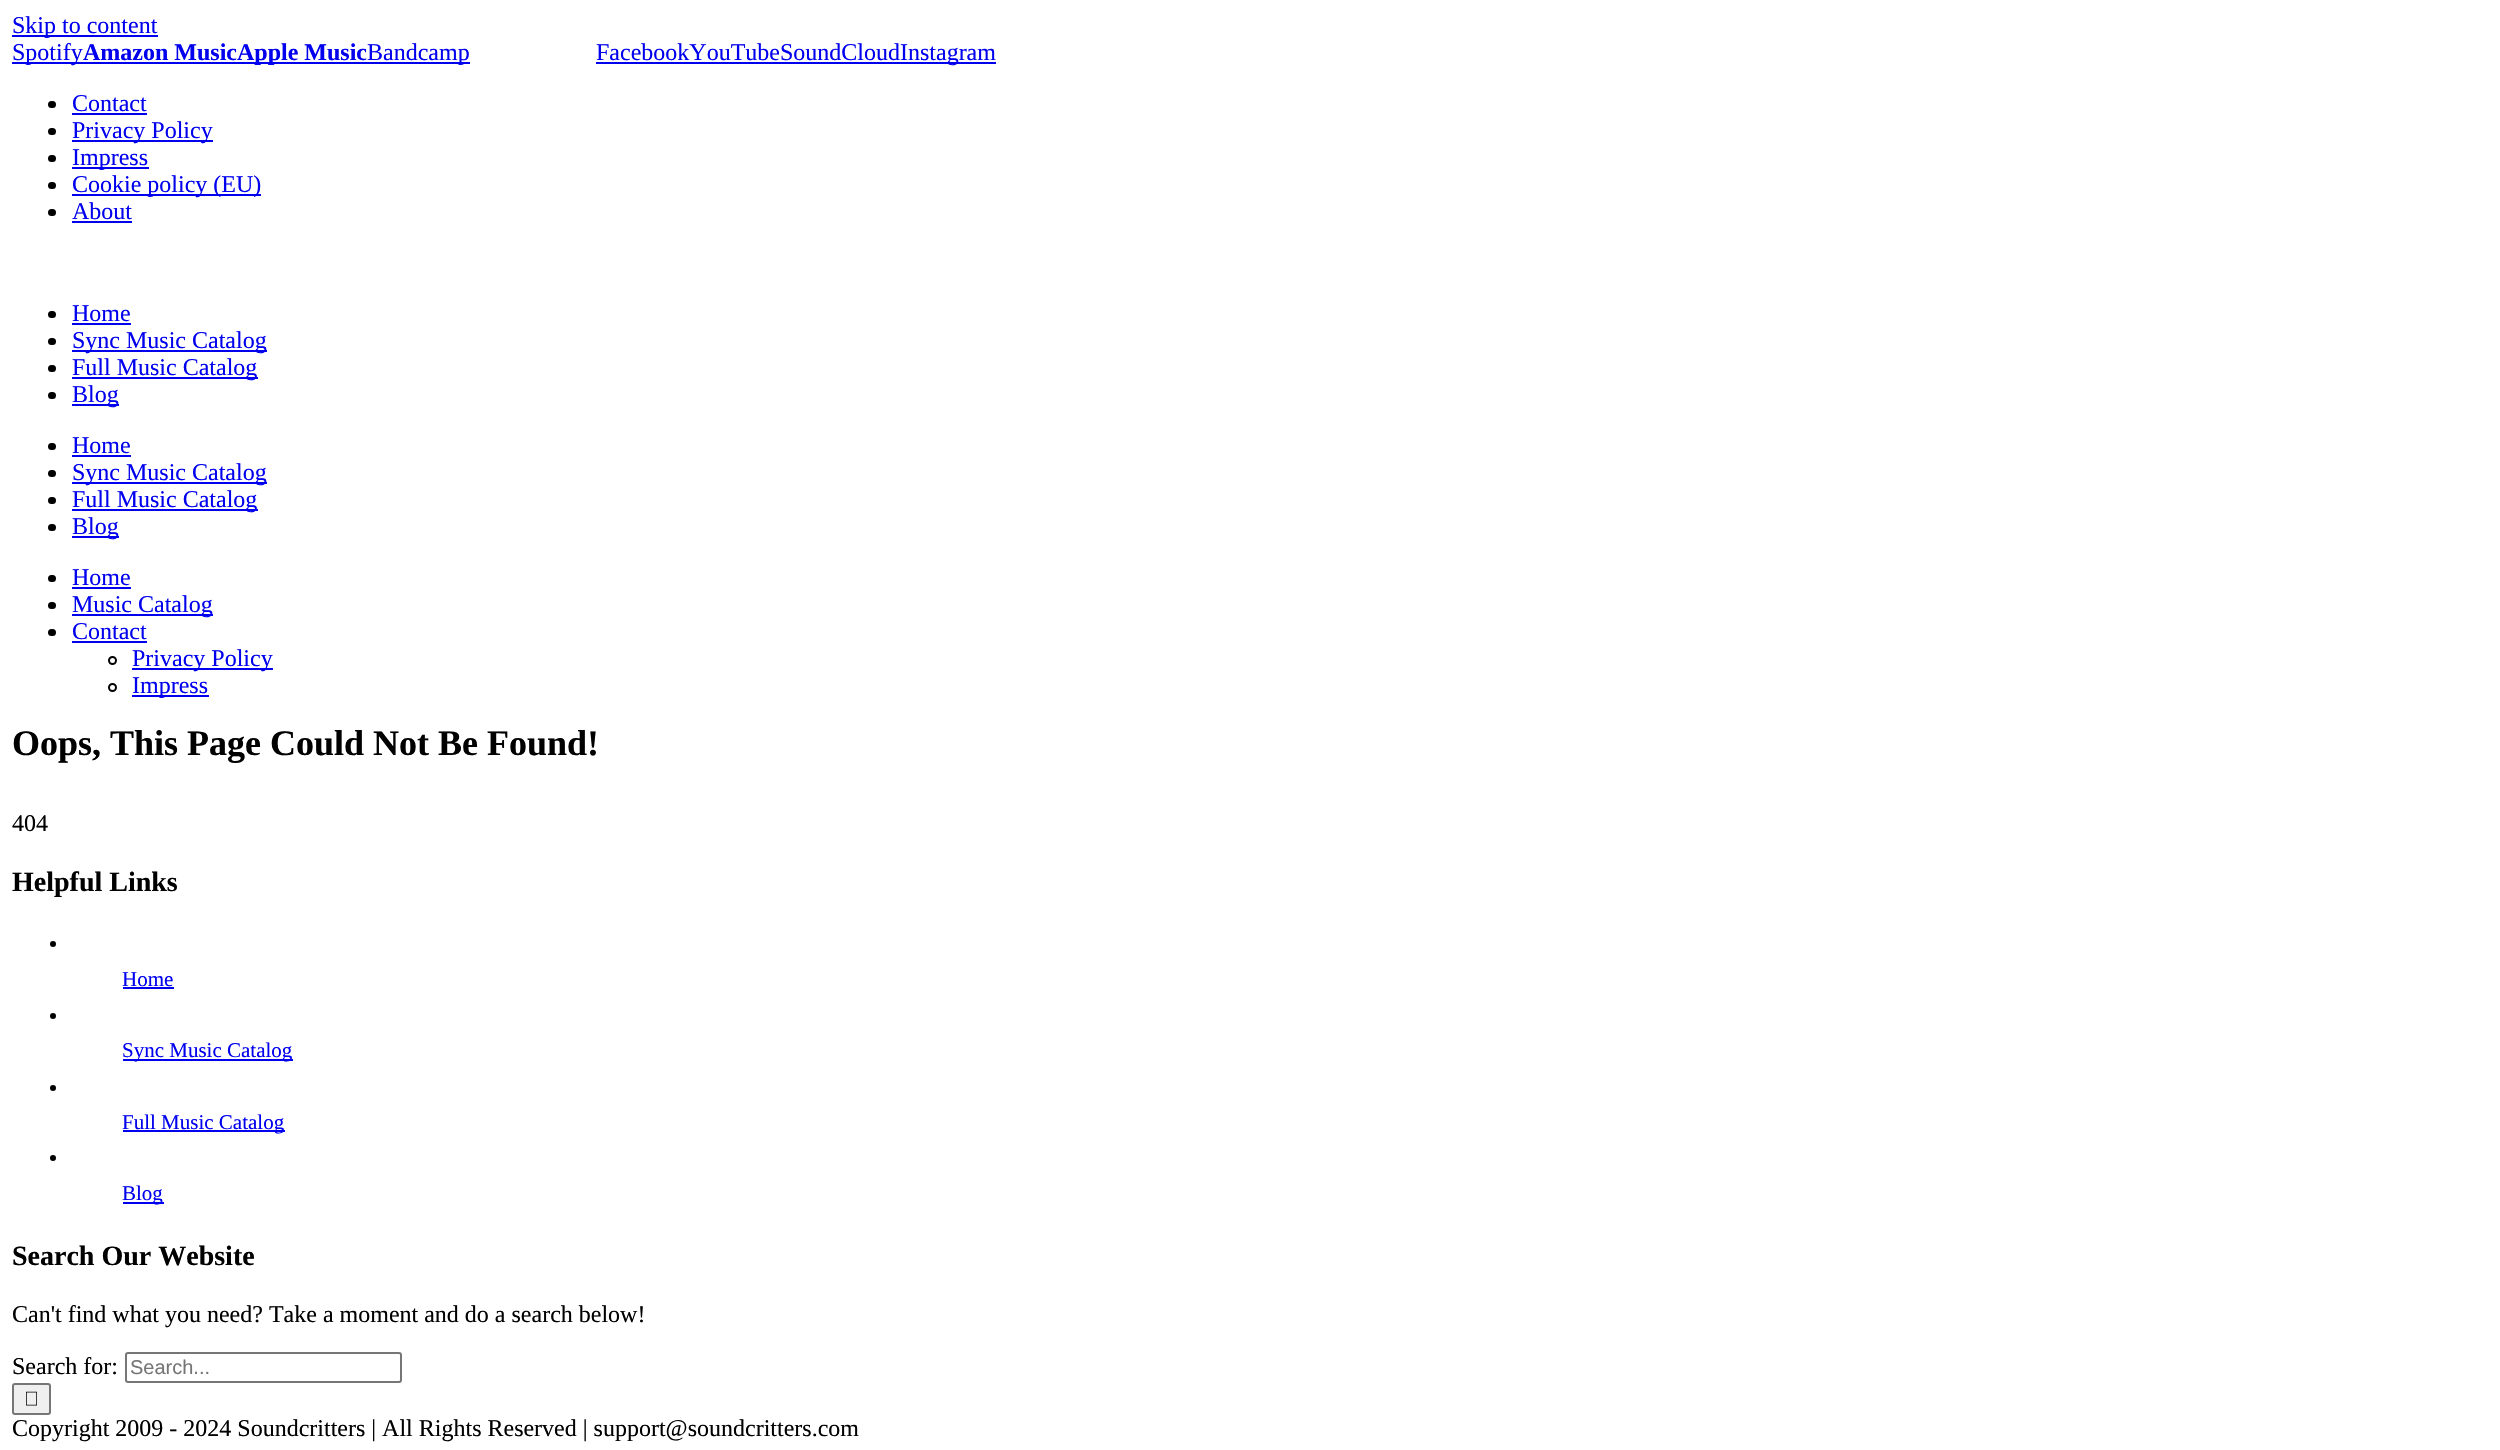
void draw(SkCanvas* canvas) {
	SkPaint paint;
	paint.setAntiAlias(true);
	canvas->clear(0xffffffff);
	paint.setColor(0xff0000ee);
	canvas->drawRect(SkRect::MakeXYWH(12, 35, 146, 2), paint);
	SkFont f1(fontMgr->matchFamilyStyle("Liberation Serif", SkFontStyle::Normal()), 24);
	f1.setSubpixel(true);
	canvas->drawString("Skip to content", 12, 33, f1, paint);
	canvas->drawRect(SkRect::MakeXYWH(12, 62, 354, 2), paint);
	canvas->drawString("Spotify", 12, 60, f1, paint);
	SkFont f2(fontMgr->matchFamilyStyle("Liberation Serif", SkFontStyle::Bold()), 24);
	f2.setSubpixel(true);
	canvas->drawString("Amazon MusicApple Music", 83, 60, f2, paint);
	canvas->drawRect(SkRect::MakeXYWH(366, 62, 104, 2), paint);
	canvas->drawString("Bandcamp", 367, 60, f1, paint);
	canvas->drawRect(SkRect::MakeXYWH(596, 62, 400, 2), paint);
	canvas->drawString("FacebookYouTubeSoundCloudInstagram", 596, 60, f1, paint);
	paint.setColor(0xff000000);
	canvas->drawRoundRect(SkRect::MakeXYWH(48, 101, 8, 7), 3.5, 3.5, paint);
	paint.setColor(0xff0000ee);
	canvas->drawString("Contact", 72, 111, f1, paint);
	canvas->drawRect(SkRect::MakeXYWH(72, 113, 75, 2), paint);
	paint.setColor(0xff000000);
	canvas->drawRoundRect(SkRect::MakeXYWH(48, 128, 8, 7), 3.5, 3.5, paint);
	paint.setColor(0xff0000ee);
	canvas->drawRect(SkRect::MakeXYWH(72, 140, 141, 2), paint);
	canvas->drawString("Privacy Policy", 72, 138, f1, paint);
	paint.setColor(0xff000000);
	canvas->drawRoundRect(SkRect::MakeXYWH(48, 155, 8, 7), 3.5, 3.5, paint);
	paint.setColor(0xff0000ee);
	canvas->drawRect(SkRect::MakeXYWH(72, 167, 77, 2), paint);
	canvas->drawString("Impress", 72, 165, f1, paint);
	paint.setColor(0xff000000);
	canvas->drawRoundRect(SkRect::MakeXYWH(48, 182, 8, 7), 3.5, 3.5, paint);
	paint.setColor(0xff0000ee);
	canvas->drawRect(SkRect::MakeXYWH(72, 194, 189, 2), paint);
	canvas->drawString("Cookie policy (EU)", 72, 192, f1, paint);
	paint.setColor(0xff000000);
	canvas->drawRoundRect(SkRect::MakeXYWH(48, 209, 8, 7), 3.5, 3.5, paint);
	paint.setColor(0xff0000ee);
	canvas->drawString("About", 72, 219, f1, paint);
	canvas->drawRect(SkRect::MakeXYWH(72, 221, 60, 2), paint);
	paint.setColor(0xff000000);
	canvas->drawRoundRect(SkRect::MakeXYWH(48, 311, 8, 7), 3.5, 3.5, paint);
	paint.setColor(0xff0000ee);
	canvas->drawString("Home", 72, 321, f1, paint);
	canvas->drawRect(SkRect::MakeXYWH(72, 323, 59, 2), paint);
	paint.setColor(0xff000000);
	canvas->drawRoundRect(SkRect::MakeXYWH(48, 338, 8, 7), 3.5, 3.5, paint);
	paint.setColor(0xff0000ee);
	canvas->drawRect(SkRect::MakeXYWH(72, 350, 195, 2), paint);
	canvas->drawString("Sync Music Catalog", 72, 348, f1, paint);
	paint.setColor(0xff000000);
	canvas->drawRoundRect(SkRect::MakeXYWH(48, 365, 8, 7), 3.5, 3.5, paint);
	paint.setColor(0xff0000ee);
	canvas->drawRect(SkRect::MakeXYWH(72, 377, 186, 2), paint);
	canvas->drawString("Full Music Catalog", 72, 375, f1, paint);
	paint.setColor(0xff000000);
	canvas->drawRoundRect(SkRect::MakeXYWH(48, 392, 8, 7), 3.5, 3.5, paint);
	paint.setColor(0xff0000ee);
	canvas->drawRect(SkRect::MakeXYWH(72, 404, 47, 2), paint);
	canvas->drawString("Blog", 72, 402, f1, paint);
	paint.setColor(0xff000000);
	canvas->drawRoundRect(SkRect::MakeXYWH(48, 443, 8, 7), 3.5, 3.5, paint);
	paint.setColor(0xff0000ee);
	canvas->drawString("Home", 72, 453, f1, paint);
	canvas->drawRect(SkRect::MakeXYWH(72, 455, 59, 2), paint);
	paint.setColor(0xff000000);
	canvas->drawRoundRect(SkRect::MakeXYWH(48, 470, 8, 7), 3.5, 3.5, paint);
	paint.setColor(0xff0000ee);
	canvas->drawRect(SkRect::MakeXYWH(72, 482, 195, 2), paint);
	canvas->drawString("Sync Music Catalog", 72, 480, f1, paint);
	paint.setColor(0xff000000);
	canvas->drawRoundRect(SkRect::MakeXYWH(48, 497, 8, 7), 3.5, 3.5, paint);
	paint.setColor(0xff0000ee);
	canvas->drawRect(SkRect::MakeXYWH(72, 509, 186, 2), paint);
	canvas->drawString("Full Music Catalog", 72, 507, f1, paint);
	paint.setColor(0xff000000);
	canvas->drawRoundRect(SkRect::MakeXYWH(48, 524, 8, 7), 3.5, 3.5, paint);
	paint.setColor(0xff0000ee);
	canvas->drawRect(SkRect::MakeXYWH(72, 536, 47, 2), paint);
	canvas->drawString("Blog", 72, 534, f1, paint);
	paint.setColor(0xff000000);
	canvas->drawRoundRect(SkRect::MakeXYWH(48, 575, 8, 7), 3.5, 3.5, paint);
	paint.setColor(0xff0000ee);
	canvas->drawString("Home", 72, 585, f1, paint);
	canvas->drawRect(SkRect::MakeXYWH(72, 587, 59, 2), paint);
	paint.setColor(0xff000000);
	canvas->drawRoundRect(SkRect::MakeXYWH(48, 602, 8, 7), 3.5, 3.5, paint);
	paint.setColor(0xff0000ee);
	canvas->drawRect(SkRect::MakeXYWH(72, 614, 141, 2), paint);
	canvas->drawString("Music Catalog", 72, 612, f1, paint);
	paint.setColor(0xff000000);
	canvas->drawRoundRect(SkRect::MakeXYWH(48, 629, 8, 7), 3.5, 3.5, paint);
	paint.setColor(0xff0000ee);
	canvas->drawString("Contact", 72, 639, f1, paint);
	canvas->drawRect(SkRect::MakeXYWH(72, 641, 75, 2), paint);
	paint.setStroke(true);
	paint.setStrokeWidth(2);
	paint.setColor(0xff000000);
	canvas->drawCircle(112.5, 660.5, 3.5, paint);
	paint.setStroke(false);
	paint.setColor(0xff0000ee);
	canvas->drawRect(SkRect::MakeXYWH(132, 668, 141, 2), paint);
	canvas->drawString("Privacy Policy", 132, 666, f1, paint);
	paint.setStroke(true);
	paint.setColor(0xff000000);
	canvas->drawCircle(112.5, 687.5, 3.5, paint);
	paint.setStroke(false);
	paint.setColor(0xff0000ee);
	canvas->drawRect(SkRect::MakeXYWH(132, 695, 77, 2), paint);
	canvas->drawString("Impress", 132, 693, f1, paint);
	SkFont f3(fontMgr->matchFamilyStyle("Liberation Serif", SkFontStyle::Bold()), 36);
	f3.setSubpixel(true);
	paint.setColor(0xff000000);
	canvas->drawString("Oops, This Page Could Not Be Found!", 12, 755, f3, paint);
	canvas->drawString("404", 12, 831, f1, paint);
	SkFont f4(fontMgr->matchFamilyStyle("Liberation Serif", SkFontStyle::Bold()), 28);
	f4.setSubpixel(true);
	canvas->drawString("Helpful Links", 12, 891, f4, paint);
	canvas->drawCircle(53, 944, 3, paint);
	SkFont f5(fontMgr->matchFamilyStyle("Liberation Serif", SkFontStyle::Normal()), 21);
	f5.setSubpixel(true);
	paint.setColor(0xff0000ee);
	canvas->drawString("Home", 122, 986, f5, paint);
	canvas->drawRect(SkRect::MakeXYWH(123, 987, 51, 2), paint);
	paint.setColor(0xff000000);
	canvas->drawCircle(53, 1016, 3, paint);
	paint.setColor(0xff0000ee);
	canvas->drawRect(SkRect::MakeXYWH(123, 1059, 170, 2), paint);
	canvas->drawString("Sync Music Catalog", 122, 1057, f5, paint);
	paint.setColor(0xff000000);
	canvas->drawCircle(53, 1088, 3, paint);
	paint.setColor(0xff0000ee);
	canvas->drawRect(SkRect::MakeXYWH(123, 1130, 162, 2), paint);
	canvas->drawString("Full Music Catalog", 122, 1129, f5, paint);
	paint.setColor(0xff000000);
	canvas->drawCircle(53, 1158, 3, paint);
	paint.setColor(0xff0000ee);
	canvas->drawRect(SkRect::MakeXYWH(123, 1202, 41, 2), paint);
	canvas->drawString("Blog", 122, 1200, f5, paint);
	paint.setColor(0xff000000);
	canvas->drawString("Search Our Website", 12, 1265, f4, paint);
	canvas->drawString("Can't find what you need? Take a moment and do a search below!", 12, 1322, f1, paint);
	canvas->drawString("Search for:", 12, 1374, f1, paint);
	paint.setStroke(true);
	paint.setColor(0xff767676);
	canvas->drawRoundRect(SkRect::MakeXYWH(126, 1353, 275, 29), 2, 2, paint);
	SkFont f6(fontMgr->matchFamilyStyle("Liberation Sans", SkFontStyle::Normal()), 20);
	f6.setSubpixel(true);
	paint.setStroke(false);
	paint.setColor(0xff757575);
	canvas->drawString("Search...", 130, 1374, f6, paint);
	paint.setColor(0xffefefef);
	canvas->drawRoundRect(SkRect::MakeXYWH(13, 1384, 37, 30), 2, 2, paint);
	paint.setStroke(true);
	paint.setColor(0xff767676);
	canvas->drawRoundRect(SkRect::MakeXYWH(13, 1384, 37, 30), 2, 2, paint);
	canvas->drawImageRect(SkImages::DeferredFromEncodedData(SkData::MakeFromFileName("img1.png")), SkRect::MakeXYWH(26, 1391, 11, 15), SkSamplingOptions());
	paint.setStroke(false);
	paint.setColor(0xff000000);
	canvas->drawString("Copyright 2009 - 2024 Soundcritters | All Rights Reserved | support@soundcritters.com", 12, 1436, f1, paint);
}
